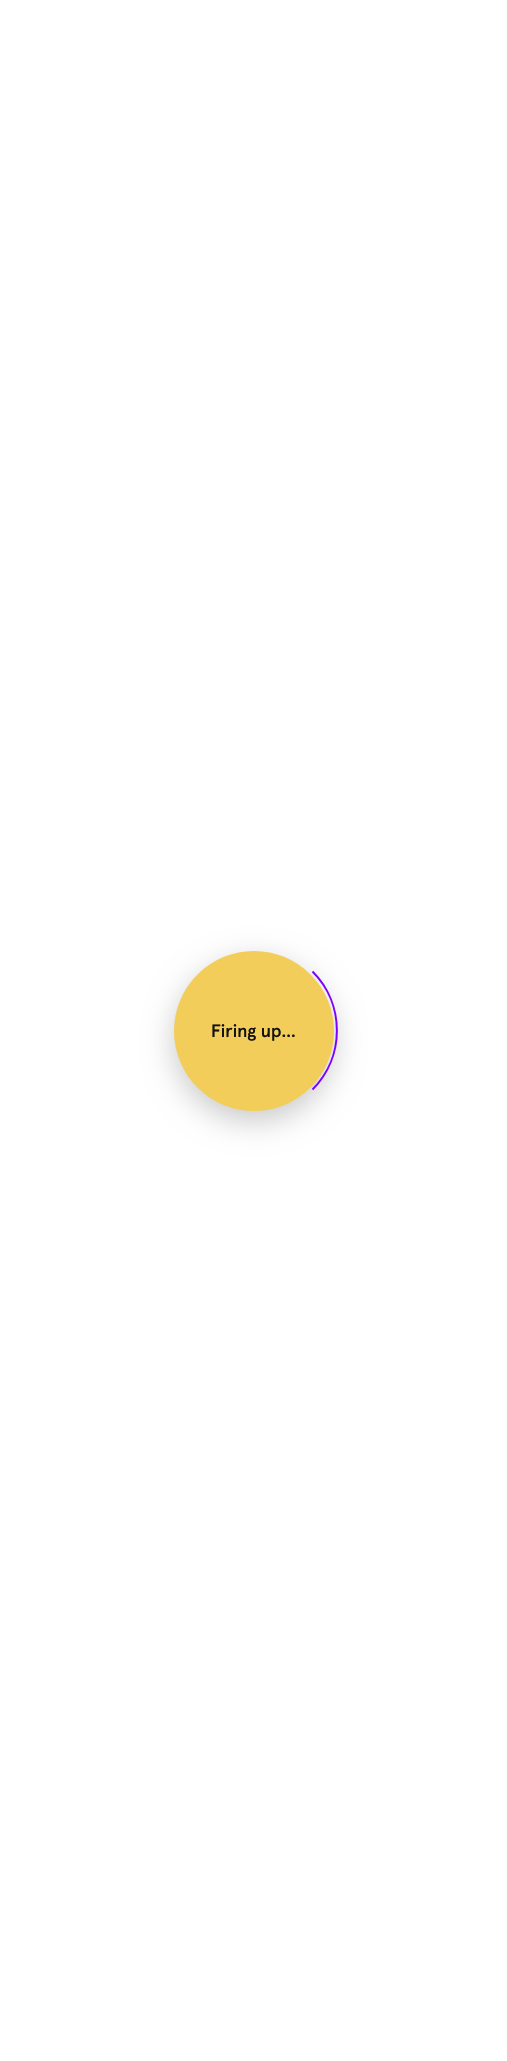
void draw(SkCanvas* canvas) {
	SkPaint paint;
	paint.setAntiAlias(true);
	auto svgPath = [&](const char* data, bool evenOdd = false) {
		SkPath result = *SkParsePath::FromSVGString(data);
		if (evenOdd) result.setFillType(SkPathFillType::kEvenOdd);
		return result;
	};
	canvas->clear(0xffffffff);
	paint.setColor(0x36000000);
	paint.setMaskFilter(SkMaskFilter::MakeBlur(kNormal_SkBlurStyle, 15));
	canvas->drawRoundRect(SkRect::MakeXYWH(174, 961, 160, 160), 80, 80, paint);
	paint.setMaskFilter(nullptr);
	paint.setColor(0xfff3cd59);
	canvas->drawCircle(254, 1031, 80, paint);
	SkFont f1(fontMgr->matchFamilyStyle("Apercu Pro", SkFontStyle(500, SkFontStyle::kNormal_Width, SkFontStyle::kUpright_Slant)), 18);
	f1.setSubpixel(true);
	paint.setColor(0xff111111);
	canvas->drawString("Firing up...", 211, 1037, f1, paint);
	paint.setStroke(true);
	paint.setStrokeWidth(2);
	paint.setColor(0xff7d00fe);
	canvas->drawPath(svgPath("M312.5 971.5C345 1004 345 1057 312.5 1089.5"), paint);
}
